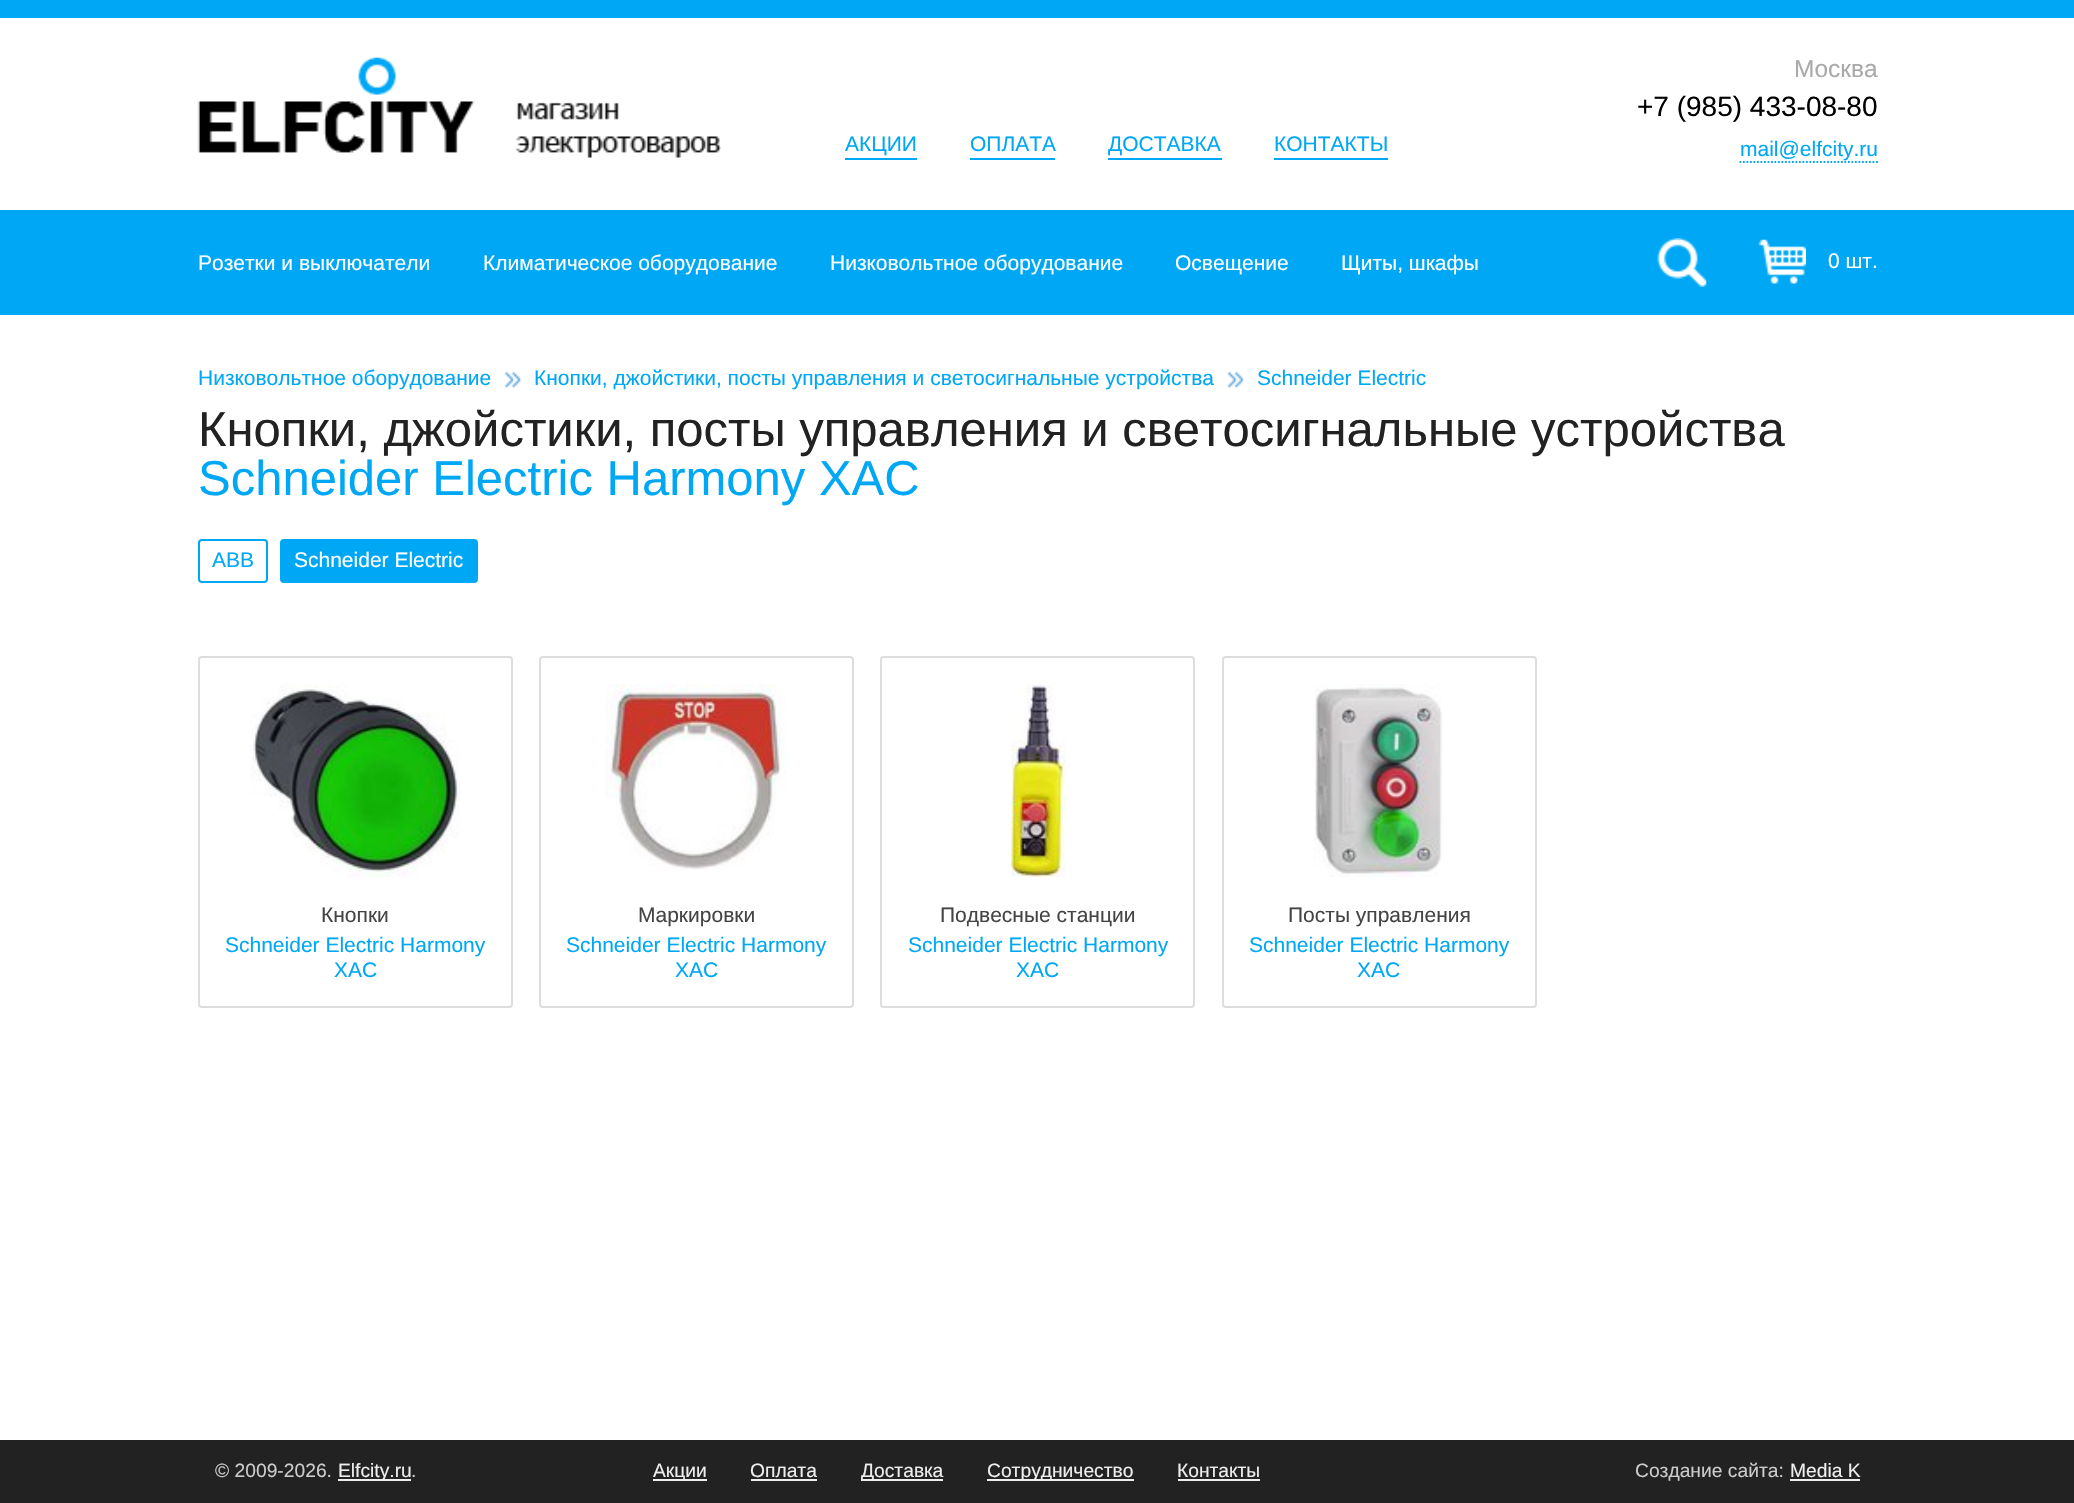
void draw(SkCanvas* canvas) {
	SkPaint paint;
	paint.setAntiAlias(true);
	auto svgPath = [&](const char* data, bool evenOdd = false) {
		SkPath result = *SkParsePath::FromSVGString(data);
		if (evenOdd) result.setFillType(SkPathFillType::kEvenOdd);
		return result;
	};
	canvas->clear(0xffffffff);
	paint.setColor(0xff00a7f4);
	canvas->drawRect(SkRect::MakeXYWH(0, 0, 2074, 18), paint);
	canvas->drawImageRect(SkImages::DeferredFromEncodedData(SkData::MakeFromFileName("img1.png")), SkRect::MakeXYWH(197, 57, 524, 101), SkSamplingOptions());
	SkFont f1(fontMgr->matchFamilyStyle("Liberation Sans", SkFontStyle::Normal()), 21);
	f1.setSubpixel(true);
	canvas->drawString("АКЦИИ", 845, 151, f1, paint);
	canvas->drawRect(SkRect::MakeXYWH(845, 158, 72, 2), paint);
	canvas->drawString("ОПЛАТА", 970, 151, f1, paint);
	canvas->drawRect(SkRect::MakeXYWH(970, 158, 85, 2), paint);
	canvas->drawString("ДОСТАВКА", 1108, 151, f1, paint);
	canvas->drawRect(SkRect::MakeXYWH(1108, 158, 114, 2), paint);
	canvas->drawString("КОНТАКТЫ", 1274, 151, f1, paint);
	canvas->drawRect(SkRect::MakeXYWH(1274, 158, 114, 2), paint);
	SkFont f2(fontMgr->matchFamilyStyle("Liberation Sans", SkFontStyle::Normal()), 24.5);
	f2.setSubpixel(true);
	paint.setColor(0xffaaaaaa);
	canvas->drawString("Москва", 1794, 77, f2, paint);
	SkFont f3(fontMgr->matchFamilyStyle("Liberation Sans", SkFontStyle::Normal()), 28);
	f3.setSubpixel(true);
	paint.setColor(0xff000000);
	canvas->drawString("+7 (985) 433-08-80", 1637, 116, f3, paint);
	paint.setColor(0xff00a7f4);
	canvas->drawString("mail@elfcity.ru", 1740, 156, f1, paint);
	paint.setStroke(true);
	paint.setStrokeWidth(1.8);
	paint.setPathEffect(SkDashPathEffect::Make({{1.75f, 1.75f}}, 0));
	canvas->drawPath(svgPath("M1739.5 162H1878"), paint);
	paint.setPathEffect(nullptr);
	paint.setStroke(false);
	canvas->drawRect(SkRect::MakeXYWH(0, 210, 2074, 105), paint);
	paint.setColor(0xffffffff);
	canvas->drawString("Розетки и выключатели", 198, 270, f1, paint);
	canvas->drawString("Климатическое оборудование", 483, 270, f1, paint);
	canvas->drawString("Низковольтное оборудование", 830, 270, f1, paint);
	canvas->drawString("Освещение", 1175, 270, f1, paint);
	canvas->drawString("Щиты, шкафы", 1341, 270, f1, paint);
	canvas->drawImageRect(SkImages::DeferredFromEncodedData(SkData::MakeFromFileName("img2.png")), SkRect::MakeXYWH(1657, 238, 50, 49), SkSamplingOptions());
	canvas->drawImageRect(SkImages::DeferredFromEncodedData(SkData::MakeFromFileName("img3.png")), SkRect::MakeXYWH(1758, 239, 48, 45), SkSamplingOptions());
	canvas->drawString("0 шт.", 1828, 268, f1, paint);
	paint.setColor(0xff00a7f4);
	canvas->drawString("Низковольтное оборудование", 198, 385, f1, paint);
	canvas->drawImageRect(SkImages::DeferredFromEncodedData(SkData::MakeFromFileName("img4.png")), SkRect::MakeXYWH(504, 371, 18, 18), SkSamplingOptions());
	canvas->drawString("Кнопки, джойстики, посты управления и светосигнальные устройства", 534, 385, f1, paint);
	canvas->drawImageRect(SkImages::DeferredFromEncodedData(SkData::MakeFromFileName("img5.png")), SkRect::MakeXYWH(1226, 371, 19, 18), SkSamplingOptions());
	canvas->drawString("Schneider Electric", 1257, 385, f1, paint);
	SkFont f4(fontMgr->matchFamilyStyle("Liberation Sans", SkFontStyle::Normal()), 49);
	f4.setSubpixel(true);
	paint.setColor(0xff222222);
	canvas->drawString("Кнопки, джойстики, посты управления и светосигнальные устройства", 198, 446, f4, paint);
	paint.setColor(0xff00a7f4);
	canvas->drawString("Schneider Electric Harmony XAC", 198, 495, f4, paint);
	paint.setStroke(true);
	paint.setStrokeWidth(2);
	canvas->drawRoundRect(SkRect::MakeXYWH(199, 540, 68, 42), 3, 3, paint);
	paint.setStroke(false);
	canvas->drawString("ABB", 212, 567, f1, paint);
	canvas->drawRoundRect(SkRect::MakeXYWH(281, 540, 196, 42), 3, 3, paint);
	paint.setStroke(true);
	canvas->drawRoundRect(SkRect::MakeXYWH(281, 540, 196, 42), 3, 3, paint);
	paint.setStroke(false);
	paint.setColor(0xffffffff);
	canvas->drawString("Schneider Electric", 294, 567, f1, paint);
	paint.setStroke(true);
	paint.setColor(0xffdddddd);
	canvas->drawRoundRect(SkRect::MakeXYWH(199, 657, 313, 350), 3, 3, paint);
	canvas->drawImageRect(SkImages::DeferredFromEncodedData(SkData::MakeFromFileName("img6.png")), SkRect::MakeXYWH(250, 684, 210, 193), SkSamplingOptions());
	paint.setStroke(false);
	paint.setColor(0xff444444);
	canvas->drawString("Кнопки", 321, 922, f1, paint);
	paint.setColor(0xff00a7f4);
	canvas->drawString("Schneider Electric Harmony", 225, 952, f1, paint);
	canvas->drawString("XAC", 334, 977, f1, paint);
	paint.setStroke(true);
	paint.setColor(0xffdddddd);
	canvas->drawRoundRect(SkRect::MakeXYWH(540, 657, 313, 350), 3, 3, paint);
	canvas->drawImageRect(SkImages::DeferredFromEncodedData(SkData::MakeFromFileName("img7.png")), SkRect::MakeXYWH(605, 684, 182, 186), SkSamplingOptions());
	paint.setStroke(false);
	paint.setColor(0xff444444);
	canvas->drawString("Маркировки", 638, 922, f1, paint);
	paint.setColor(0xff00a7f4);
	canvas->drawString("Schneider Electric Harmony", 566, 952, f1, paint);
	canvas->drawString("XAC", 675, 977, f1, paint);
	paint.setStroke(true);
	paint.setColor(0xffdddddd);
	canvas->drawRoundRect(SkRect::MakeXYWH(881, 657, 313, 350), 3, 3, paint);
	canvas->drawImageRect(SkImages::DeferredFromEncodedData(SkData::MakeFromFileName("img8.png")), SkRect::MakeXYWH(1011, 684, 55, 193), SkSamplingOptions());
	paint.setStroke(false);
	paint.setColor(0xff444444);
	canvas->drawString("Подвесные станции", 940, 922, f1, paint);
	paint.setColor(0xff00a7f4);
	canvas->drawString("Schneider Electric Harmony", 908, 952, f1, paint);
	canvas->drawString("XAC", 1016, 977, f1, paint);
	paint.setStroke(true);
	paint.setColor(0xffdddddd);
	canvas->drawRoundRect(SkRect::MakeXYWH(1223, 657, 313, 350), 3, 3, paint);
	canvas->drawImageRect(SkImages::DeferredFromEncodedData(SkData::MakeFromFileName("img9.png")), SkRect::MakeXYWH(1314, 684, 129, 193), SkSamplingOptions());
	paint.setStroke(false);
	paint.setColor(0xff444444);
	canvas->drawString("Посты управления", 1288, 922, f1, paint);
	paint.setColor(0xff00a7f4);
	canvas->drawString("Schneider Electric Harmony", 1249, 952, f1, paint);
	canvas->drawString("XAC", 1357, 977, f1, paint);
	paint.setColor(0xff222222);
	canvas->drawRect(SkRect::MakeXYWH(0, 1440, 2074, 63), paint);
	SkFont f5(fontMgr->matchFamilyStyle("Liberation Sans", SkFontStyle::Normal()), 19.25);
	f5.setSubpixel(true);
	paint.setColor(0xffcccccc);
	canvas->drawString("© 2009-2026.", 215, 1477, f5, paint);
	paint.setColor(0xffeeeeee);
	canvas->drawRect(SkRect::MakeXYWH(338, 1479, 73, 2), paint);
	canvas->drawString("Elfcity.ru", 338, 1477, f5, paint);
	paint.setColor(0xffcccccc);
	canvas->drawString(".", 411, 1477, f5, paint);
	paint.setColor(0xffeeeeee);
	canvas->drawRect(SkRect::MakeXYWH(653, 1479, 54, 2), paint);
	canvas->drawString("Акции", 653, 1477, f5, paint);
	canvas->drawString("Оплата", 750, 1477, f5, paint);
	canvas->drawRect(SkRect::MakeXYWH(751, 1479, 66, 2), paint);
	canvas->drawRect(SkRect::MakeXYWH(861, 1479, 82, 2), paint);
	canvas->drawString("Доставка", 861, 1477, f5, paint);
	canvas->drawRect(SkRect::MakeXYWH(987, 1479, 147, 2), paint);
	canvas->drawString("Сотрудничество", 987, 1477, f5, paint);
	canvas->drawString("Контакты", 1177, 1477, f5, paint);
	canvas->drawRect(SkRect::MakeXYWH(1178, 1479, 82, 2), paint);
	paint.setColor(0xffcccccc);
	canvas->drawString("Cоздание сайта:", 1635, 1477, f5, paint);
	paint.setColor(0xffeeeeee);
	canvas->drawString("Media K", 1790, 1477, f5, paint);
	canvas->drawRect(SkRect::MakeXYWH(1790, 1479, 70, 2), paint);
}
